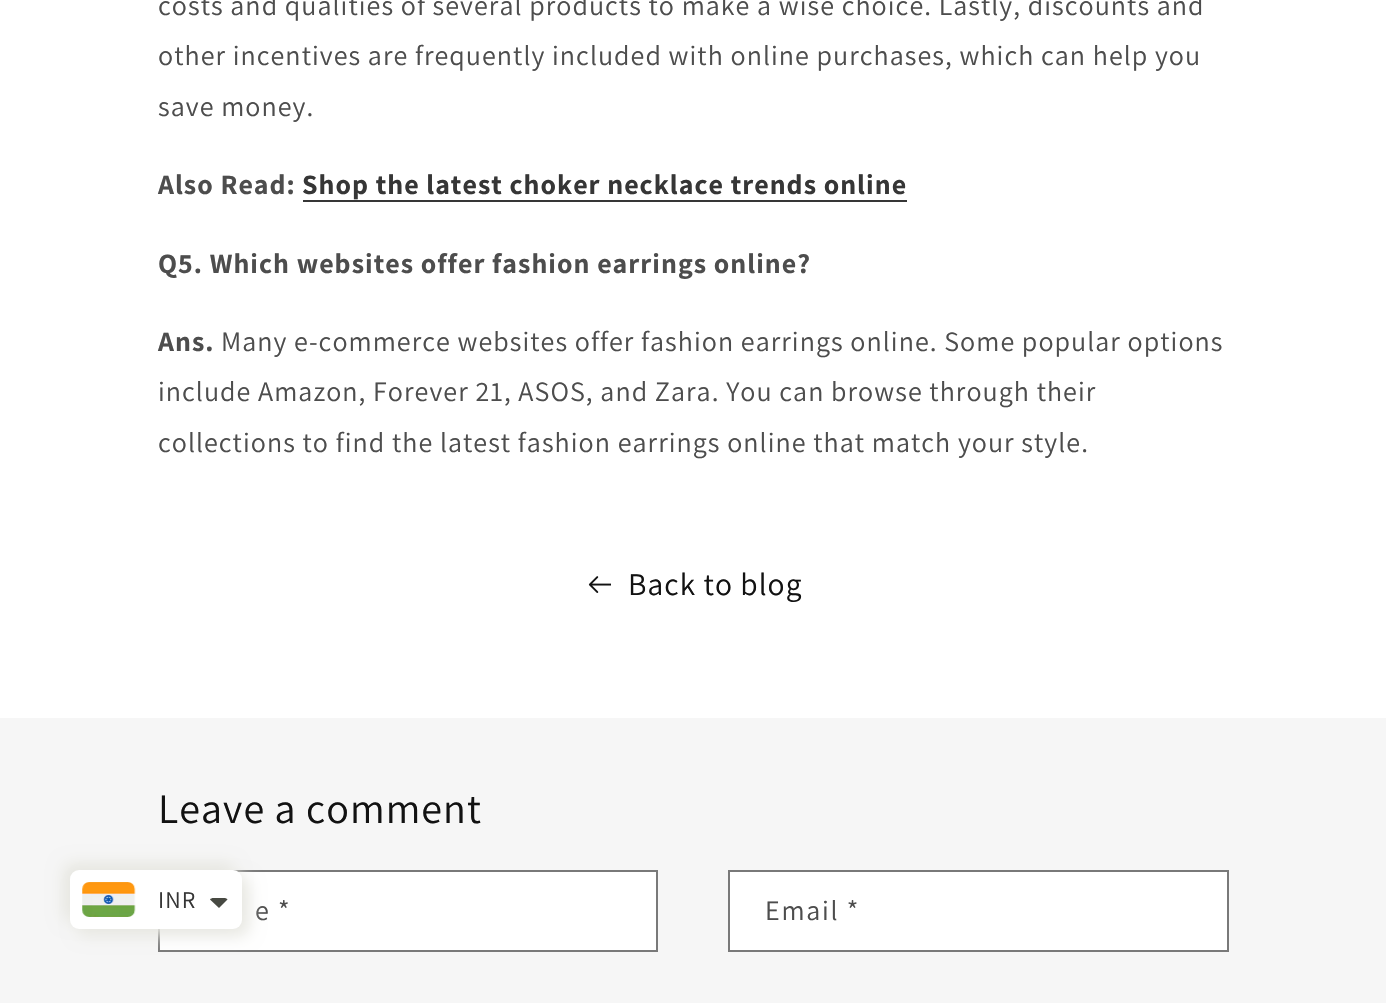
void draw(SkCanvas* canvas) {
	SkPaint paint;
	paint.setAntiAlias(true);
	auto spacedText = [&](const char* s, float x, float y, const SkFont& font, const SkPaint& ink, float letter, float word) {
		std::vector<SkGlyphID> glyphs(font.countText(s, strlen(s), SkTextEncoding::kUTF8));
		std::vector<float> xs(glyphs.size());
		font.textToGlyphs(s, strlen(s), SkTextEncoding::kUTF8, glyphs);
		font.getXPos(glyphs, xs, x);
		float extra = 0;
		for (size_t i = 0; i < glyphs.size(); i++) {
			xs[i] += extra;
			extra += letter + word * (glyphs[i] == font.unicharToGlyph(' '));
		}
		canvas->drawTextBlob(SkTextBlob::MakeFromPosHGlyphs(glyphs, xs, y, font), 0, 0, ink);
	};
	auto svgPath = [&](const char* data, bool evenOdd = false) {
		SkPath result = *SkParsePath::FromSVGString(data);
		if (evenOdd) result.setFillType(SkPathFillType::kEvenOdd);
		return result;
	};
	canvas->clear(0xffffffff);
	SkFont f1(fontMgr->matchFamilyStyle("Assistant", SkFontStyle::Normal()), 28);
	f1.setSubpixel(true);
	paint.setColor(0xff4d4d4d);
	spacedText("costs and qualities of several products to make a wise choice. Lastly, discounts and", 158, 15, f1, paint, 1.05, 0);
	spacedText("other incentives are frequently included with online purchases, which can help you", 158, 65, f1, paint, 1.05, 0);
	spacedText("save money.", 158, 116, f1, paint, 1.05, 0);
	SkFont f2(fontMgr->matchFamilyStyle("Assistant", SkFontStyle::Bold()), 28);
	f2.setSubpixel(true);
	spacedText("Also Read:", 158, 194, f2, paint, 1.05, 0);
	paint.setColor(0xff363636);
	spacedText("Shop the latest choker necklace trends online", 302, 194, f2, paint, 1.05, 0);
	canvas->drawRect(SkRect::MakeXYWH(303, 200, 604, 2), paint);
	paint.setColor(0xff4d4d4d);
	spacedText("Q5. Which websites offer fashion earrings online?", 158, 273, f2, paint, 1.05, 0);
	spacedText("Ans.", 158, 351, f2, paint, 1.05, 0);
	spacedText("Many e-commerce websites offer fashion earrings online. Some popular options", 221, 351, f1, paint, 1.05, 0);
	spacedText("include Amazon, Forever 21, ASOS, and Zara. You can browse through their", 158, 401, f1, paint, 1.05, 0);
	spacedText("collections to find the latest fashion earrings online that match your style.", 158, 452, f1, paint, 1.05, 0);
	canvas->drawImageRect(SkImages::DeferredFromEncodedData(SkData::MakeFromFileName("img1.png")), SkRect::MakeXYWH(588, 576, 23, 17), SkSamplingOptions());
	SkFont f3(fontMgr->matchFamilyStyle("Assistant", SkFontStyle::Normal()), 31.5);
	f3.setSubpixel(true);
	paint.setColor(0xff121212);
	spacedText("Back to blog", 628, 595, f3, paint, 1.05, 0);
	paint.setColor(0xfff6f6f6);
	canvas->drawRect(SkRect::MakeXYWH(0, 718, 1386, 285), paint);
	SkFont f4(fontMgr->matchFamilyStyle("Assistant", SkFontStyle::Normal()), 42);
	f4.setSubpixel(true);
	paint.setColor(0xff121212);
	spacedText("Leave a comment", 158, 823, f4, paint, 1.05, 0);
	paint.setColor(0xffffffff);
	canvas->drawRect(SkRect::MakeXYWH(159, 872, 497, 78), paint);
	paint.setStroke(true);
	paint.setStrokeWidth(2);
	paint.setColor(0x8c121212);
	canvas->drawRect(SkRect::MakeXYWH(159, 871, 498, 80), paint);
	paint.setStroke(false);
	paint.setColor(0xff4d4d4d);
	spacedText("e *", 255, 920, f1, paint, 1.75, 0);
	paint.setColor(0xffffffff);
	canvas->drawRect(SkRect::MakeXYWH(730, 872, 497, 78), paint);
	paint.setStroke(true);
	paint.setColor(0xff797979);
	canvas->drawRect(SkRect::MakeXYWH(729, 871, 499, 80), paint);
	paint.setStroke(false);
	paint.setColor(0xff4d4d4d);
	spacedText("Email *", 765, 920, f1, paint, 1.75, 0);
	paint.setColor(0xffe8e8e2);
	paint.setMaskFilter(SkMaskFilter::MakeBlur(kNormal_SkBlurStyle, 8));
	canvas->drawRoundRect(SkRect::MakeXYWH(63, 863, 172, 59), 9, 9, paint);
	paint.setMaskFilter(nullptr);
	paint.setMaskFilter(SkMaskFilter::MakeBlur(kNormal_SkBlurStyle, 8));
	canvas->drawRoundRect(SkRect::MakeXYWH(77, 877, 172, 59), 9, 9, paint);
	paint.setMaskFilter(nullptr);
	paint.setColor(0xffffffff);
	canvas->drawRoundRect(SkRect::MakeXYWH(70, 870, 172, 59), 9, 9, paint);
	canvas->drawImageRect(SkImages::DeferredFromEncodedData(SkData::MakeFromFileName("img2.png")), SkRect::MakeXYWH(82, 882, 54, 35), SkSamplingOptions());
	SkFont f5(fontMgr->matchFamilyStyle("Assistant", SkFontStyle::Normal()), 24);
	f5.setSubpixel(true);
	paint.setColor(0xff363636);
	spacedText("INR", 158, 908, f5, paint, 1.05, 0);
	paint.setColor(0xff474942);
	canvas->drawPath(svgPath("M213.5 898H224C225.5 898 227 898.5 227.5 899.5L219 908L210 899.5C210.5 898.5 212 898 213.5 898Z"), paint);
}
